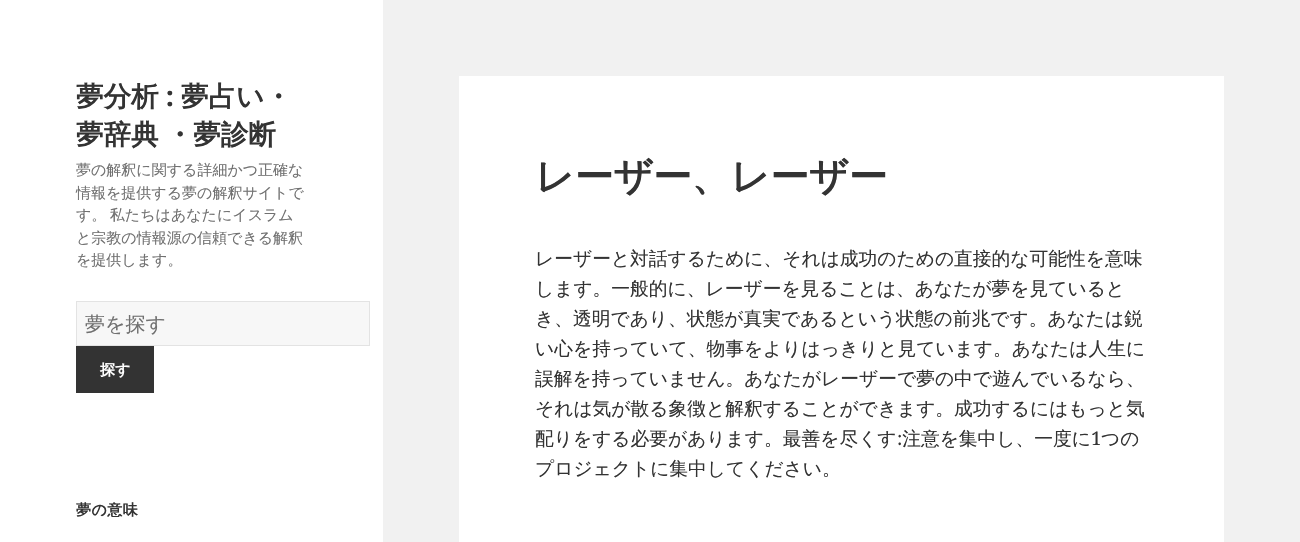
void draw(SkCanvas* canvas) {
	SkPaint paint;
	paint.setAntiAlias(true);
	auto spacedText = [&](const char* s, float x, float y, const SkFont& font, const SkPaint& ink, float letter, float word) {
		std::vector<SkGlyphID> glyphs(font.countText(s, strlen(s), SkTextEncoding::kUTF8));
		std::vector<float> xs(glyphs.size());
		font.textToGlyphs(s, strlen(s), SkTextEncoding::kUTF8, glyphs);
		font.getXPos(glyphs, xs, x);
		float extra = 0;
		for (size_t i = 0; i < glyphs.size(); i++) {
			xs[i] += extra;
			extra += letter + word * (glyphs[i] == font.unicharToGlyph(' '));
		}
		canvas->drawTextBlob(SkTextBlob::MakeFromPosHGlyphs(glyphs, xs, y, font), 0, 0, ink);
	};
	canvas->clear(0xfff1f1f1);
	paint.setColor(0xffffffff);
	canvas->drawRect(SkRect::MakeXYWH(0, 0, 383, 542), paint);
	SkFont f1(fontMgr->matchFamilyStyle("WenQuanYi Zen Hei", SkFontStyle::Bold()), 27.5);
	f1.setSubpixel(true);
	paint.setColor(0xff333333);
	canvas->drawString("夢分析", 76, 106, f1, paint);
	SkFont f2(fontMgr->matchFamilyStyle("Noto Sans", SkFontStyle::Bold()), 27.5);
	f2.setSubpixel(true);
	canvas->drawString(":", 166, 106, f2, paint);
	canvas->drawString("夢占い・", 181, 106, f1, paint);
	spacedText("夢辞典 ・夢診断", 76, 144, f1, paint, 0, -1);
	SkFont f3(fontMgr->matchFamilyStyle("WenQuanYi Zen Hei", SkFontStyle(500, SkFontStyle::kNormal_Width, SkFontStyle::kUpright_Slant)), 15);
	f3.setSubpixel(true);
	paint.setColor(0xff707070);
	canvas->drawString("夢の解釈に関する詳細かつ正確な", 76, 175, f3, paint);
	canvas->drawString("情報を提供する夢の解釈サイトで", 76, 198, f3, paint);
	spacedText("す。 私たちはあなたにイスラム", 76, 220, f3, paint, 0, -1);
	canvas->drawString("と宗教の情報源の信頼できる解釈", 76, 243, f3, paint);
	canvas->drawString("を提供します。", 76, 265, f3, paint);
	paint.setColor(0xfff7f7f7);
	canvas->drawRect(SkRect::MakeXYWH(76.5, 301.5, 293, 44), paint);
	paint.setStroke(true);
	paint.setStrokeWidth(1);
	paint.setColor(0xffe3e3e3);
	canvas->drawRect(SkRect::MakeXYWH(76.5, 301.5, 293, 44), paint);
	SkFont f4(fontMgr->matchFamilyStyle("WenQuanYi Zen Hei", SkFontStyle(500, SkFontStyle::kNormal_Width, SkFontStyle::kUpright_Slant)), 20);
	f4.setSubpixel(true);
	paint.setStroke(false);
	paint.setColor(0xff707070);
	canvas->drawString("夢を探す", 85, 331, f4, paint);
	paint.setColor(0xff333333);
	canvas->drawRect(SkRect::MakeXYWH(76, 346, 78, 47), paint);
	SkFont f5(fontMgr->matchFamilyStyle("WenQuanYi Zen Hei", SkFontStyle::Bold()), 15);
	f5.setSubpixel(true);
	paint.setColor(0xffffffff);
	canvas->drawString("探す", 100, 375, f5, paint);
	paint.setColor(0xff333333);
	spacedText("夢の意味", 76, 515, f5, paint, 0.5, 0);
	paint.setColor(0xffffffff);
	canvas->drawRect(SkRect::MakeXYWH(459, 76, 765, 466), paint);
	SkFont f6(fontMgr->matchFamilyStyle("WenQuanYi Zen Hei", SkFontStyle::Bold()), 38.75);
	f6.setSubpixel(true);
	paint.setColor(0xff333333);
	canvas->drawString("レーザー、レーザー", 535, 190, f6, paint);
	SkFont f7(fontMgr->matchFamilyStyle("WenQuanYi Zen Hei", SkFontStyle(500, SkFontStyle::kNormal_Width, SkFontStyle::kUpright_Slant)), 18.75);
	f7.setSubpixel(true);
	canvas->drawString("レーザーと対話するために、それは成功のための直接的な可能性を意味", 535, 265, f7, paint);
	canvas->drawString("します。一般的に、レーザーを見ることは、あなたが夢を見ていると", 535, 295, f7, paint);
	canvas->drawString("き、透明であり、状態が真実であるという状態の前兆です。あなたは鋭", 535, 325, f7, paint);
	canvas->drawString("い心を持っていて、物事をよりはっきりと見ています。あなたは人生に", 535, 355, f7, paint);
	canvas->drawString("誤解を持っていません。あなたがレーザーで夢の中で遊んでいるなら、", 535, 385, f7, paint);
	canvas->drawString("それは気が散る象徴と解釈することができます。成功するにはもっと気", 535, 415, f7, paint);
	canvas->drawString("配りをする必要があります。最善を尽くす 注意を集中し、一度に", 535, 445, f7, paint);
	SkFont f8(fontMgr->matchFamilyStyle("Noto Serif", SkFontStyle::Normal()), 18.75);
	f8.setSubpixel(true);
	canvas->drawString("1", 1091, 445, f8, paint);
	canvas->drawString("つの", 1101, 445, f7, paint);
	canvas->drawString(":", 897, 445, f8, paint);
	canvas->drawString("プロジェクトに集中してください。", 535, 475, f7, paint);
}
